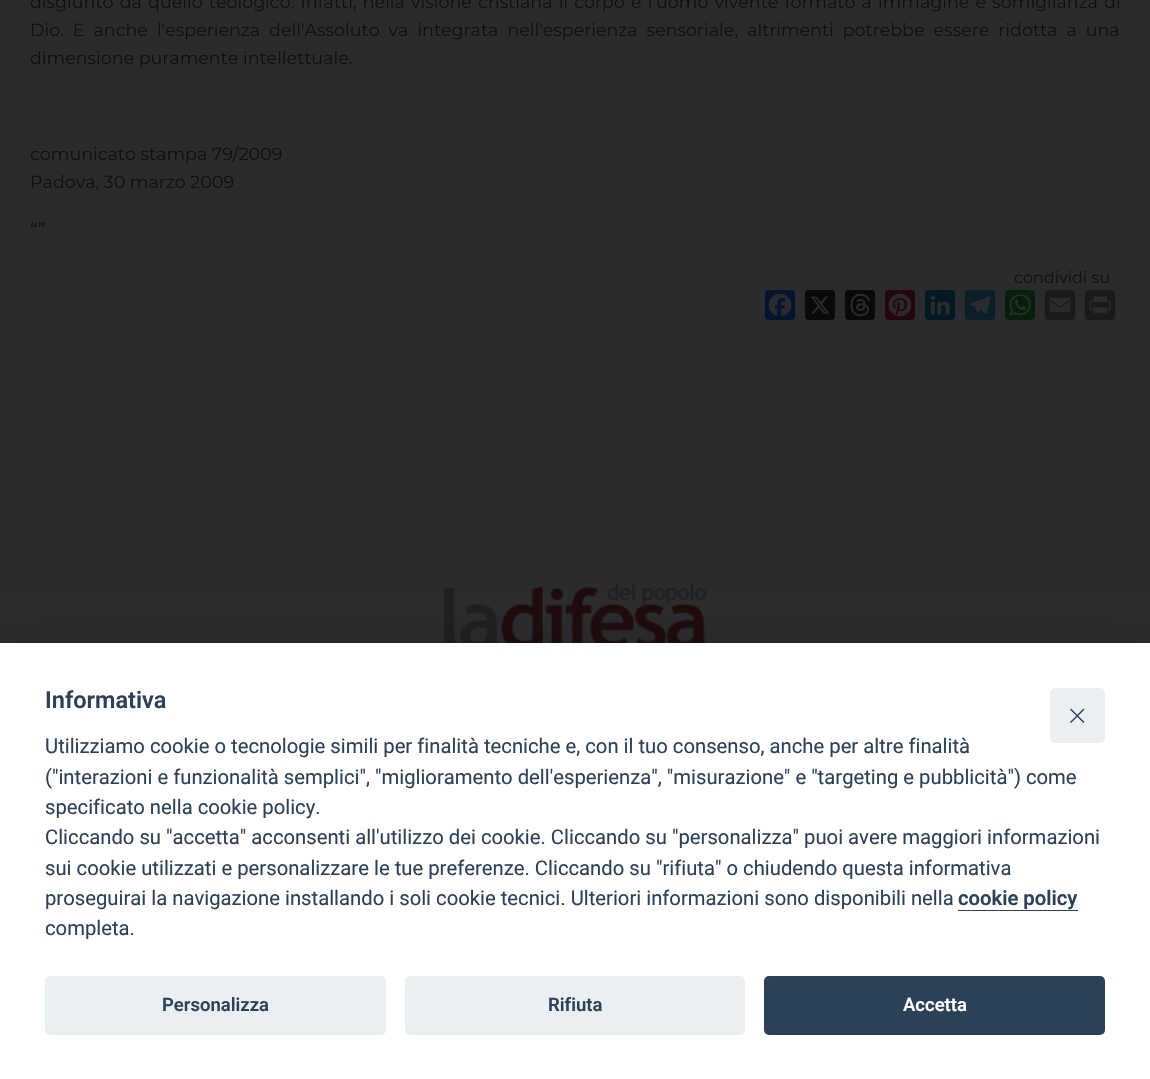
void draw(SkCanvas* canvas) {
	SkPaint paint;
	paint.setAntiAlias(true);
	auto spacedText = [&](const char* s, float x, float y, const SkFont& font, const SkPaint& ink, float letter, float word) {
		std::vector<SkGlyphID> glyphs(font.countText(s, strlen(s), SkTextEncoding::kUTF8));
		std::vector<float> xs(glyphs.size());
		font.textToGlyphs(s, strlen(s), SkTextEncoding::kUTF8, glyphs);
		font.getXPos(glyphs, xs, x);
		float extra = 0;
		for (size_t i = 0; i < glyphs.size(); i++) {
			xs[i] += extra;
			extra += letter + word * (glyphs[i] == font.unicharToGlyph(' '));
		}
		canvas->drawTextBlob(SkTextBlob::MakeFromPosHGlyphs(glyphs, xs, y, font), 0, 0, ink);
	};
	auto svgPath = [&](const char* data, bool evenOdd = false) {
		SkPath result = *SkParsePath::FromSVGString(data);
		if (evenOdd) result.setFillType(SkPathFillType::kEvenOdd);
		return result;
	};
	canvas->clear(0xff2a2b2d);
	paint.setColor(0xff27292a);
	canvas->drawRect(SkRect::MakeXYWH(30, 419, 1090, 1), paint);
	SkFont f1(fontMgr->matchFamilyStyle("Montserrat", SkFontStyle::Normal()), 17.5);
	f1.setSubpixel(true);
	paint.setColor(0xff0e0f11);
	spacedText("disgiunto da quello teologico. Infatti, nella visione cristiana il corpo è l'uomo vivente formato a immagine e somiglianza di", 30, 8, f1, paint, 0, 1.6);
	spacedText("Dio. E anche l'esperienza dell'Assoluto va integrata nell'esperienza sensoriale, altrimenti potrebbe essere ridotta a una", 30, 36, f1, paint, 0, 4.4);
	canvas->drawString("dimensione puramente intellettuale.", 30, 64, f1, paint);
	canvas->drawString("comunicato stampa 79/2009", 30, 160, f1, paint);
	canvas->drawString("Padova, 30 marzo 2009", 30, 188, f1, paint);
	SkFont f2(fontMgr->matchFamilyStyle("Montserrat", SkFontStyle::Normal()), 20);
	f2.setSubpixel(true);
	canvas->drawString("“”", 30, 237, f2, paint);
	SkFont f3(fontMgr->matchFamilyStyle("Montserrat", SkFontStyle::Normal()), 16);
	f3.setSubpixel(true);
	canvas->drawString("condividi su", 1014, 283, f3, paint);
	paint.setColor(0xff05142d);
	canvas->drawRoundRect(SkRect::MakeXYWH(765, 290, 30, 30), 4, 4, paint);
	canvas->drawImageRect(SkImages::DeferredFromEncodedData(SkData::MakeFromFileName("img1.png")), SkRect::MakeXYWH(768, 293, 24, 24), SkSamplingOptions());
	paint.setColor(0xff07090b);
	canvas->drawRoundRect(SkRect::MakeXYWH(805, 290, 30, 30), 4, 4, paint);
	canvas->drawImageRect(SkImages::DeferredFromEncodedData(SkData::MakeFromFileName("img2.png")), SkRect::MakeXYWH(810, 296, 20, 18), SkSamplingOptions());
	canvas->drawRoundRect(SkRect::MakeXYWH(845, 290, 30, 30), 4, 4, paint);
	canvas->drawImageRect(SkImages::DeferredFromEncodedData(SkData::MakeFromFileName("img3.png")), SkRect::MakeXYWH(850, 293, 20, 24), SkSamplingOptions());
	paint.setColor(0xff26050c);
	canvas->drawRoundRect(SkRect::MakeXYWH(885, 290, 30, 30), 4, 4, paint);
	canvas->drawImageRect(SkImages::DeferredFromEncodedData(SkData::MakeFromFileName("img4.png")), SkRect::MakeXYWH(888, 293, 24, 24), SkSamplingOptions());
	paint.setColor(0xff031822);
	canvas->drawRoundRect(SkRect::MakeXYWH(925, 290, 30, 30), 4, 4, paint);
	canvas->drawImageRect(SkImages::DeferredFromEncodedData(SkData::MakeFromFileName("img5.png")), SkRect::MakeXYWH(930, 295, 20, 20), SkSamplingOptions());
	paint.setColor(0xff0a1e28);
	canvas->drawRoundRect(SkRect::MakeXYWH(965, 290, 30, 30), 4, 4, paint);
	canvas->drawImageRect(SkImages::DeferredFromEncodedData(SkData::MakeFromFileName("img6.png")), SkRect::MakeXYWH(969, 296, 22, 18), SkSamplingOptions());
	paint.setColor(0xff061f08);
	canvas->drawRoundRect(SkRect::MakeXYWH(1005, 290, 30, 30), 4, 4, paint);
	canvas->drawImageRect(SkImages::DeferredFromEncodedData(SkData::MakeFromFileName("img7.png")), SkRect::MakeXYWH(1009, 294, 22, 22), SkSamplingOptions());
	paint.setColor(0xff181a1c);
	canvas->drawRoundRect(SkRect::MakeXYWH(1045, 290, 30, 30), 4, 4, paint);
	canvas->drawImageRect(SkImages::DeferredFromEncodedData(SkData::MakeFromFileName("img8.png")), SkRect::MakeXYWH(1049, 298, 22, 14), SkSamplingOptions());
	canvas->drawRoundRect(SkRect::MakeXYWH(1085, 290, 30, 30), 4, 4, paint);
	canvas->drawImageRect(SkImages::DeferredFromEncodedData(SkData::MakeFromFileName("img9.png")), SkRect::MakeXYWH(1089, 296, 22, 17), SkSamplingOptions());
	canvas->drawImageRect(SkImages::DeferredFromEncodedData(SkData::MakeFromFileName("img10.png")), SkRect::MakeXYWH(443, 583, 264, 60), SkSamplingOptions());
	paint.setColor(0x47020203);
	paint.setMaskFilter(SkMaskFilter::MakeBlur(kNormal_SkBlurStyle, 21));
	canvas->drawRect(SkRect::MakeXYWH(0, 656, 1150, 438), paint);
	paint.setMaskFilter(nullptr);
	paint.setColor(0xffffffff);
	canvas->drawRect(SkRect::MakeXYWH(0, 643, 1150, 436), paint);
	paint.setColor(0xffeaeff2);
	canvas->drawRoundRect(SkRect::MakeXYWH(1050, 688, 55, 55), 5, 5, paint);
	paint.setColor(0xff2d4156);
	canvas->drawPath(svgPath("M1084 709C1084.5 709 1084.5 709.5 1084 710L1071.5 722.5C1071.5 723 1070.5 723 1070.5 722.5C1070 722.5 1070 721.5 1070.5 721.5L1083 709C1083 708.5 1084 708.5 1084 709Z"), paint);
	canvas->drawPath(svgPath("M1070.5 709C1070.5 708.5 1071.5 708.5 1071.5 709L1084 721.5C1084.5 721.5 1084.5 722.5 1084 722.5C1084 723 1083 723 1083 722.5L1070.5 710C1070 709.5 1070 709 1070.5 709Z"), paint);
	SkFont f4(fontMgr->matchFamilyStyle("Roboto", SkFontStyle(600, SkFontStyle::kNormal_Width, SkFontStyle::kUpright_Slant)), 23.5);
	f4.setSubpixel(true);
	canvas->drawString("Informativa", 45, 708, f4, paint);
	SkFont f5(fontMgr->matchFamilyStyle("Roboto", SkFontStyle::Normal()), 20.25);
	f5.setSubpixel(true);
	canvas->drawString("Utilizziamo cookie o tecnologie simili per finalità tecniche e, con il tuo consenso, anche per altre finalità", 45, 753, f5, paint);
	canvas->drawString("(\"interazioni e funzionalità semplici\", \"miglioramento dell'esperienza\", \"misurazione\" e \"targeting e pubblicità\") come", 45, 784, f5, paint);
	canvas->drawString("specificato nella cookie policy.", 45, 814, f5, paint);
	canvas->drawString("Cliccando su \"accetta\" acconsenti all'utilizzo dei cookie. Cliccando su \"personalizza\" puoi avere maggiori informazioni", 45, 844, f5, paint);
	canvas->drawString("sui cookie utilizzati e personalizzare le tue preferenze. Cliccando su \"rifiuta\" o chiudendo questa informativa", 45, 875, f5, paint);
	canvas->drawString("proseguirai la navigazione installando i soli cookie tecnici. Ulteriori informazioni sono disponibili nella", 45, 905, f5, paint);
	SkFont f6(fontMgr->matchFamilyStyle("Roboto", SkFontStyle(600, SkFontStyle::kNormal_Width, SkFontStyle::kUpright_Slant)), 20.25);
	f6.setSubpixel(true);
	canvas->drawString("cookie policy", 958, 905, f6, paint);
	canvas->drawRect(SkRect::MakeXYWH(958, 910, 120, 1), paint);
	canvas->drawString("completa.", 45, 935, f5, paint);
	paint.setColor(0xffeaeff2);
	canvas->drawRoundRect(SkRect::MakeXYWH(45, 976, 341, 59), 5, 5, paint);
	SkFont f7(fontMgr->matchFamilyStyle("Roboto", SkFontStyle(600, SkFontStyle::kNormal_Width, SkFontStyle::kUpright_Slant)), 18.5);
	f7.setSubpixel(true);
	paint.setColor(0xff2d4156);
	canvas->drawString("Personalizza", 162, 1011, f7, paint);
	paint.setColor(0xffeaeff2);
	canvas->drawRoundRect(SkRect::MakeXYWH(405, 976, 340, 59), 5, 5, paint);
	paint.setColor(0xff2d4156);
	canvas->drawString("Rifiuta", 548, 1011, f7, paint);
	canvas->drawRoundRect(SkRect::MakeXYWH(764, 976, 341, 59), 5, 5, paint);
	paint.setColor(0xffffffff);
	canvas->drawString("Accetta", 903, 1011, f7, paint);
}
